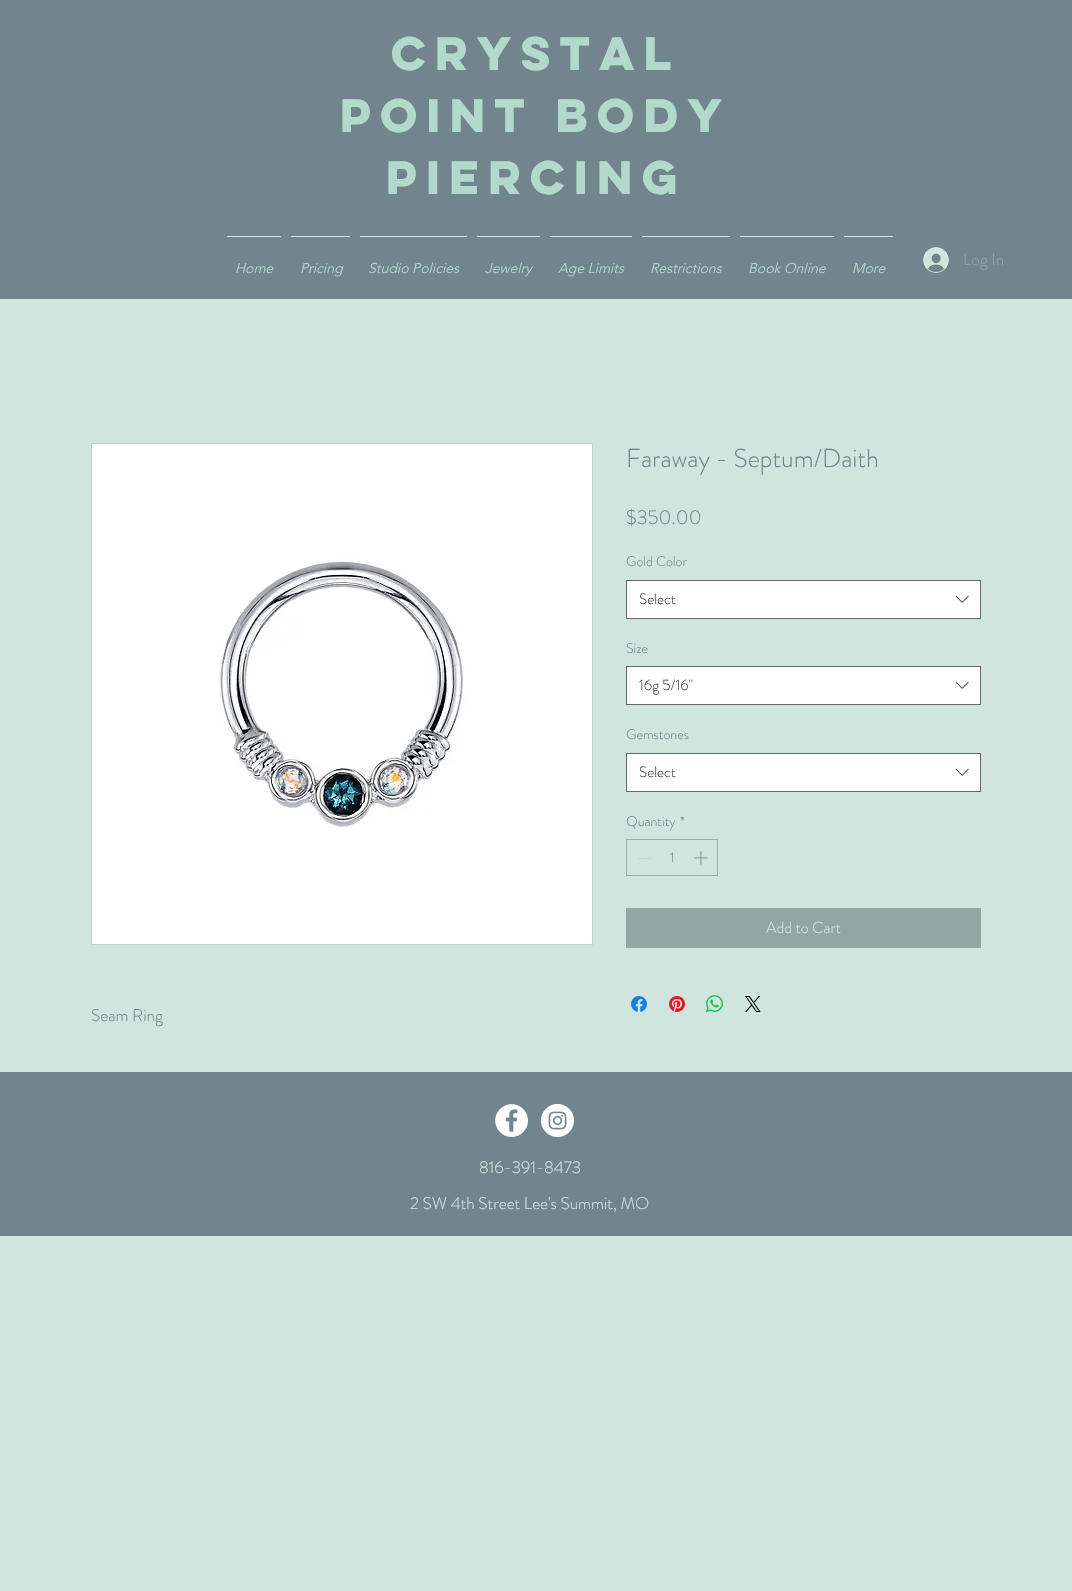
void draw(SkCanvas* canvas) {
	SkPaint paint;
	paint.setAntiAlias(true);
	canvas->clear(0xffd0e5de);
	paint.setColor(0xff72858c);
	canvas->drawRect(SkRect::MakeXYWH(0, 0, 1072, 299), paint);
	SkFont f1(fontMgr->matchFamilyStyle("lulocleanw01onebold", SkFontStyle::Bold()), 42);
	f1.setSubpixel(true);
	paint.setColor(0xffb3d9cc);
	canvas->drawString("Crystal", 391, 70, f1, paint);
	canvas->drawString("Point Body", 340, 132, f1, paint);
	canvas->drawString("Piercing", 386, 194, f1, paint);
	paint.setColor(0xffd0e5de);
	canvas->drawRect(SkRect::MakeXYWH(227, 236, 54, 1), paint);
	SkFont f2(fontMgr->matchFamilyStyle("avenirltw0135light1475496", SkFontStyle(300, SkFontStyle::kNormal_Width, SkFontStyle::kItalic_Slant)), 14);
	f2.setSubpixel(true);
	paint.setColor(0xffb3d9cc);
	canvas->drawString("Home", 235, 273, f2, paint);
	paint.setColor(0xffd0e5de);
	canvas->drawRect(SkRect::MakeXYWH(291, 236, 59, 1), paint);
	paint.setColor(0xffb3d9cc);
	canvas->drawString("Pricing", 300, 273, f2, paint);
	paint.setColor(0xffd0e5de);
	canvas->drawRect(SkRect::MakeXYWH(360, 236, 107, 1), paint);
	paint.setColor(0xffb3d9cc);
	canvas->drawString("Studio Policies", 368, 273, f2, paint);
	paint.setColor(0xffd0e5de);
	canvas->drawRect(SkRect::MakeXYWH(477, 236, 63, 1), paint);
	paint.setColor(0xffb3d9cc);
	canvas->drawString("Jewelry", 485, 273, f2, paint);
	paint.setColor(0xffd0e5de);
	canvas->drawRect(SkRect::MakeXYWH(550, 236, 82, 1), paint);
	paint.setColor(0xffb3d9cc);
	canvas->drawString("Age Limits", 558, 273, f2, paint);
	paint.setColor(0xffd0e5de);
	canvas->drawRect(SkRect::MakeXYWH(642, 236, 88, 1), paint);
	paint.setColor(0xffb3d9cc);
	canvas->drawString("Restrictions", 650, 273, f2, paint);
	paint.setColor(0xffd0e5de);
	canvas->drawRect(SkRect::MakeXYWH(740, 236, 94, 1), paint);
	paint.setColor(0xffb3d9cc);
	canvas->drawString("Book Online", 748, 273, f2, paint);
	paint.setColor(0xffd0e5de);
	canvas->drawRect(SkRect::MakeXYWH(844, 236, 49, 1), paint);
	paint.setColor(0xffb3d9cc);
	canvas->drawString("More", 852, 273, f2, paint);
	canvas->drawImageRect(SkImages::DeferredFromEncodedData(SkData::MakeFromFileName("img1.png")), SkRect::MakeXYWH(923, 247, 26, 26), SkSamplingOptions());
	SkFont f3(fontMgr->matchFamilyStyle("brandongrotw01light", SkFontStyle(300, SkFontStyle::kNormal_Width, SkFontStyle::kUpright_Slant)), 17);
	f3.setSubpixel(true);
	paint.setColor(0xff92a6a2);
	canvas->drawString("Log In", 963, 265, f3, paint);
	SkFont f4(fontMgr->matchFamilyStyle("brandongrotw01light", SkFontStyle(300, SkFontStyle::kNormal_Width, SkFontStyle::kUpright_Slant)), 26);
	f4.setSubpixel(true);
	paint.setColor(0xff72858c);
	canvas->drawString("Faraway - Septum/Daith", 626, 467, f4, paint);
	SkFont f5(fontMgr->matchFamilyStyle("brandongrotw01light", SkFontStyle(300, SkFontStyle::kNormal_Width, SkFontStyle::kUpright_Slant)), 20);
	f5.setSubpixel(true);
	canvas->drawString("$350.00", 626, 524, f5, paint);
	SkFont f6(fontMgr->matchFamilyStyle("brandongrotw01light", SkFontStyle(300, SkFontStyle::kNormal_Width, SkFontStyle::kUpright_Slant)), 14);
	f6.setSubpixel(true);
	canvas->drawString("Gold Color", 626, 566, f6, paint);
	paint.setColor(0xffffffff);
	canvas->drawRect(SkRect::MakeXYWH(626.5, 580.5, 354, 38), paint);
	paint.setStroke(true);
	paint.setStrokeWidth(1);
	paint.setColor(0xff666666);
	canvas->drawRect(SkRect::MakeXYWH(626.5, 580.5, 354, 38), paint);
	SkFont f7(fontMgr->matchFamilyStyle("brandongrotw01light", SkFontStyle(300, SkFontStyle::kNormal_Width, SkFontStyle::kUpright_Slant)), 15);
	f7.setSubpixel(true);
	paint.setStroke(false);
	paint.setColor(0xff444444);
	canvas->drawString("Select", 639, 604, f7, paint);
	canvas->drawImageRect(SkImages::DeferredFromEncodedData(SkData::MakeFromFileName("img2.png")), SkRect::MakeXYWH(955, 595, 14, 8), SkSamplingOptions());
	paint.setColor(0xff72858c);
	canvas->drawString("Size", 626, 653, f6, paint);
	paint.setColor(0xffffffff);
	canvas->drawRect(SkRect::MakeXYWH(626.5, 666.5, 354, 38), paint);
	paint.setStroke(true);
	paint.setColor(0xff666666);
	canvas->drawRect(SkRect::MakeXYWH(626.5, 666.5, 354, 38), paint);
	paint.setStroke(false);
	paint.setColor(0xff444444);
	canvas->drawString("16g 5/16\"", 639, 690, f7, paint);
	canvas->drawImageRect(SkImages::DeferredFromEncodedData(SkData::MakeFromFileName("img2.png")), SkRect::MakeXYWH(955, 681, 14, 8), SkSamplingOptions());
	paint.setColor(0xff72858c);
	canvas->drawString("Gemstones", 626, 739, f6, paint);
	paint.setColor(0xffffffff);
	canvas->drawRect(SkRect::MakeXYWH(626.5, 753.5, 354, 38), paint);
	paint.setStroke(true);
	paint.setColor(0xff666666);
	canvas->drawRect(SkRect::MakeXYWH(626.5, 753.5, 354, 38), paint);
	paint.setStroke(false);
	paint.setColor(0xff444444);
	canvas->drawString("Select", 639, 777, f7, paint);
	canvas->drawImageRect(SkImages::DeferredFromEncodedData(SkData::MakeFromFileName("img2.png")), SkRect::MakeXYWH(955, 768, 14, 8), SkSamplingOptions());
	paint.setColor(0xff72858c);
	canvas->drawString("Quantity", 626, 826, f6, paint);
	canvas->drawString("*", 680, 826, f6, paint);
	paint.setStroke(true);
	paint.setColor(0xff98abad);
	canvas->drawRect(SkRect::MakeXYWH(626.5, 839.5, 91, 36), paint);
	paint.setStroke(false);
	paint.setColor(0xffccd6d3);
	canvas->drawRect(SkRect::MakeXYWH(638, 858, 13, 1), paint);
	paint.setColor(0xff72858c);
	canvas->drawString("1", 670, 862, f6, paint);
	canvas->drawImageRect(SkImages::DeferredFromEncodedData(SkData::MakeFromFileName("img3.png")), SkRect::MakeXYWH(694, 851, 14, 14), SkSamplingOptions());
	paint.setColor(0xff92a6a2);
	canvas->drawRect(SkRect::MakeXYWH(626, 908, 355, 40), paint);
	SkFont f8(fontMgr->matchFamilyStyle("brandongrotw01light", SkFontStyle(300, SkFontStyle::kNormal_Width, SkFontStyle::kUpright_Slant)), 16);
	f8.setSubpixel(true);
	paint.setColor(0xffd0e5de);
	canvas->drawString("Add to Cart", 766, 933, f8, paint);
	canvas->drawImageRect(SkImages::DeferredFromEncodedData(SkData::MakeFromFileName("img4.png")), SkRect::MakeXYWH(631, 996, 16, 16), SkSamplingOptions());
	canvas->drawImageRect(SkImages::DeferredFromEncodedData(SkData::MakeFromFileName("img5.png")), SkRect::MakeXYWH(669, 996, 16, 16), SkSamplingOptions());
	canvas->drawImageRect(SkImages::DeferredFromEncodedData(SkData::MakeFromFileName("img6.png")), SkRect::MakeXYWH(706, 995, 17, 17), SkSamplingOptions());
	canvas->drawImageRect(SkImages::DeferredFromEncodedData(SkData::MakeFromFileName("img7.png")), SkRect::MakeXYWH(745, 996, 16, 16), SkSamplingOptions());
	paint.setStroke(true);
	paint.setColor(0xffb3d9cc);
	canvas->drawRect(SkRect::MakeXYWH(91.5, 443.5, 501, 501), paint);
	canvas->drawImageRect(SkImages::DeferredFromEncodedData(SkData::MakeFromFileName("img8.png")), SkRect::MakeXYWH(92, 444, 500, 500), SkSamplingOptions());
	paint.setStroke(false);
	paint.setColor(0xff72858c);
	canvas->drawString("Seam Ring", 91, 1021, f3, paint);
	canvas->drawRect(SkRect::MakeXYWH(0, 1072, 1072, 164), paint);
	canvas->drawImageRect(SkImages::DeferredFromEncodedData(SkData::MakeFromFileName("img9.png")), SkRect::MakeXYWH(495, 1104, 33, 33), SkSamplingOptions());
	canvas->drawImageRect(SkImages::DeferredFromEncodedData(SkData::MakeFromFileName("img10.png")), SkRect::MakeXYWH(541, 1104, 33, 33), SkSamplingOptions());
	paint.setColor(0xffd0e5de);
	canvas->drawString("816-391-8473", 479, 1173, f3, paint);
	canvas->drawString("2 SW 4th Street Lee's Summit, MO", 410, 1209, f3, paint);
}
